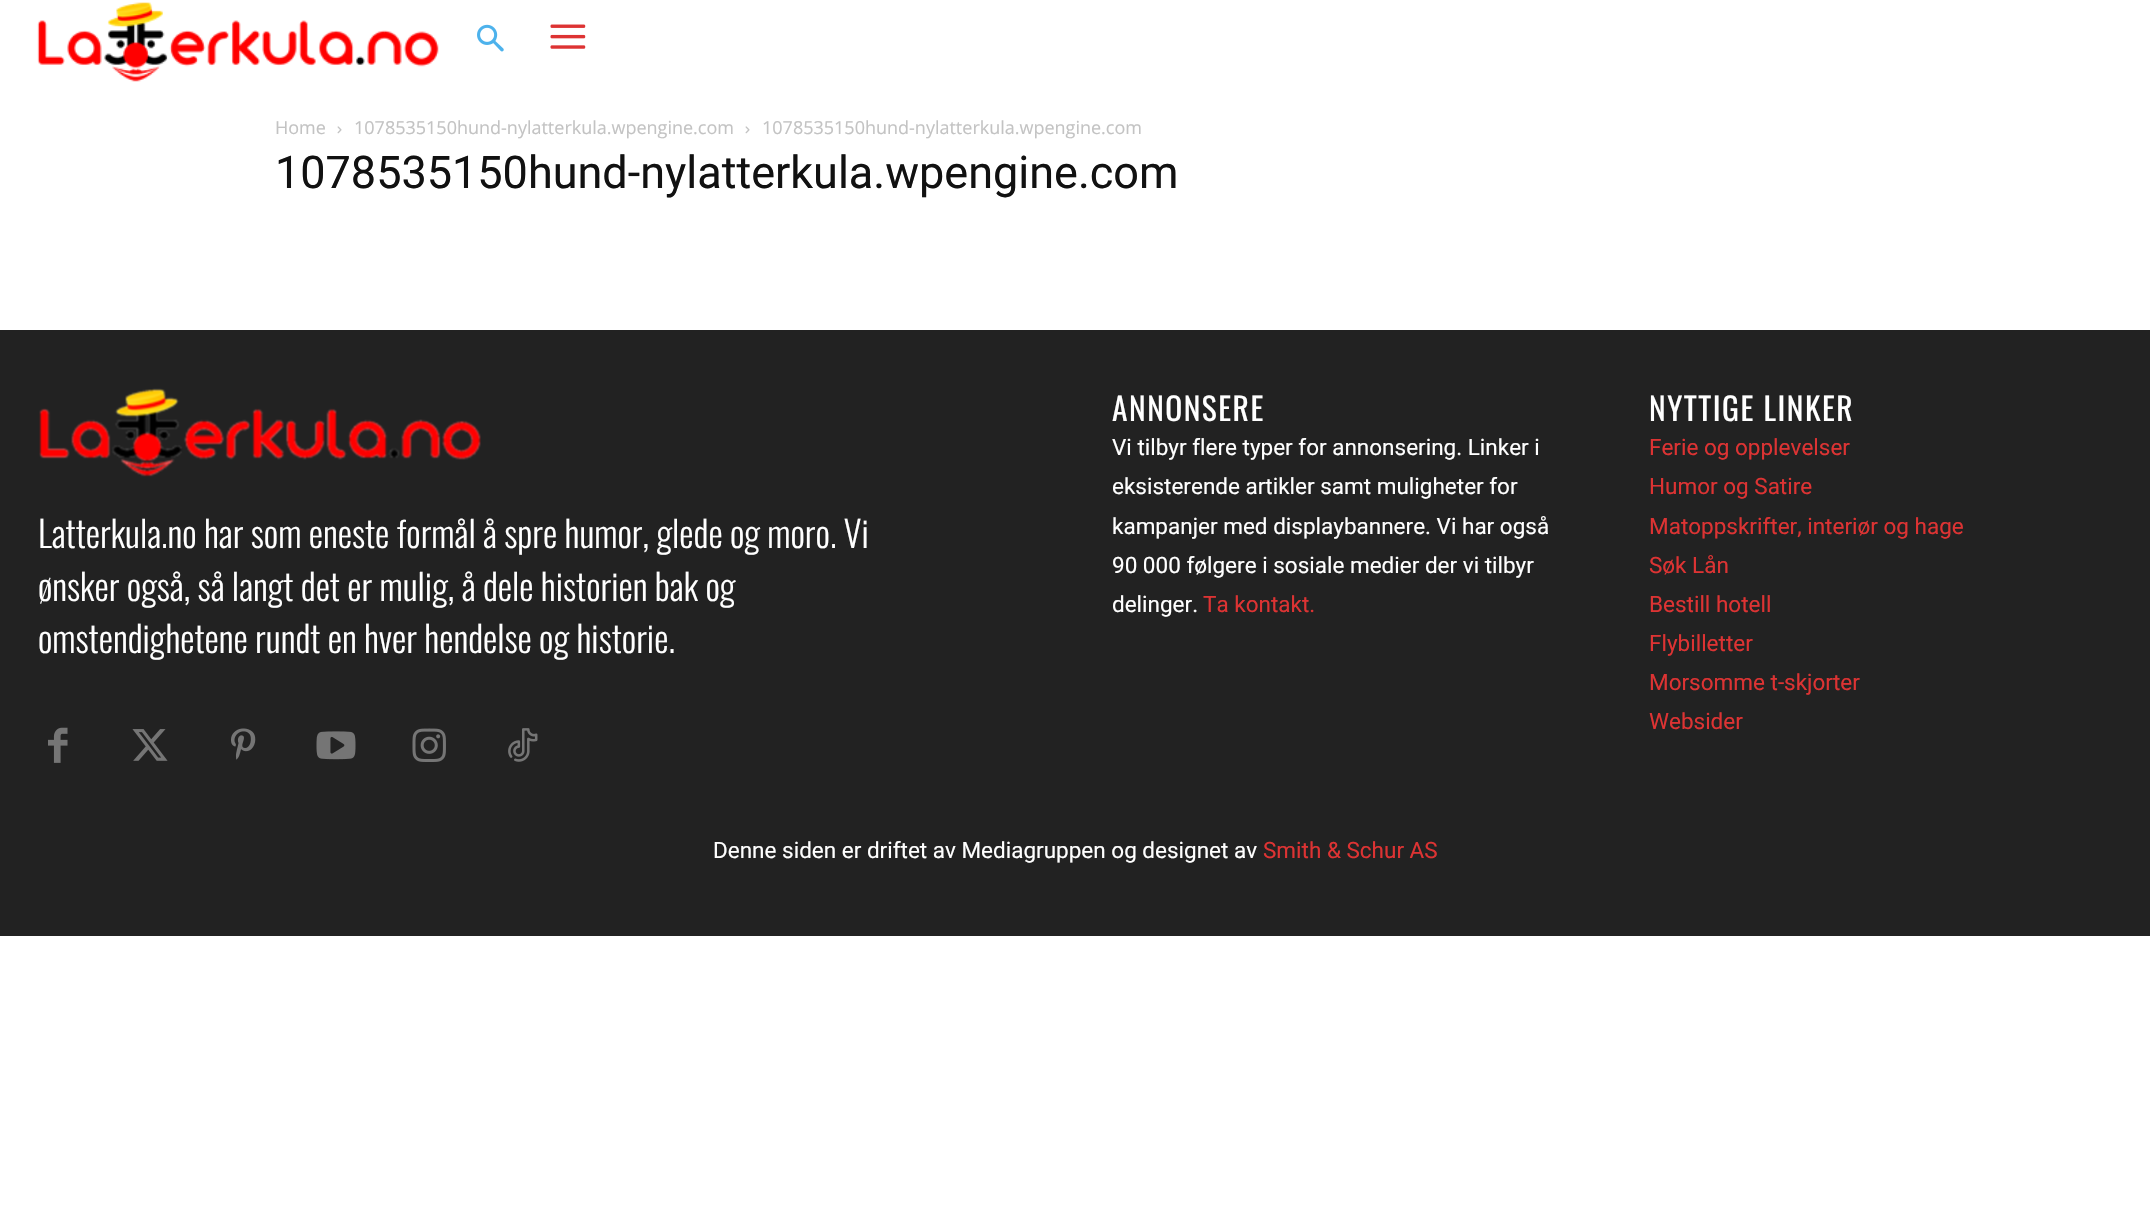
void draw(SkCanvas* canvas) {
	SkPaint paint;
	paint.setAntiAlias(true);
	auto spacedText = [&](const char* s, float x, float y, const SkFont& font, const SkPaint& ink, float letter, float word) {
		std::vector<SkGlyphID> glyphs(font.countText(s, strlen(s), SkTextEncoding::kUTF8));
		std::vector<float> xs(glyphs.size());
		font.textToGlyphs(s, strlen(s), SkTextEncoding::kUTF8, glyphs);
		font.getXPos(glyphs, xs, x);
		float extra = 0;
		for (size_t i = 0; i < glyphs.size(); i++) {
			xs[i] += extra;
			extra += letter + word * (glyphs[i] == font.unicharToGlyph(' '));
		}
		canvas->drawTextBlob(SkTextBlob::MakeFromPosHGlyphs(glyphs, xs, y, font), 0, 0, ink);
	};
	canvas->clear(0xffffffff);
	canvas->drawImageRect(SkImages::DeferredFromEncodedData(SkData::MakeFromFileName("img1.png")), SkRect::MakeXYWH(37, 2, 402, 80), SkSamplingOptions());
	canvas->drawImageRect(SkImages::DeferredFromEncodedData(SkData::MakeFromFileName("img2.png")), SkRect::MakeXYWH(477, 24, 27, 28), SkSamplingOptions());
	canvas->drawImageRect(SkImages::DeferredFromEncodedData(SkData::MakeFromFileName("img3.png")), SkRect::MakeXYWH(550, 24, 36, 25), SkSamplingOptions());
	SkFont f1(fontMgr->matchFamilyStyle("Open Sans", SkFontStyle::Normal()), 18);
	f1.setSubpixel(true);
	paint.setColor(0xffc3c3c3);
	canvas->drawString("Home", 275, 134, f1, paint);
	canvas->drawImageRect(SkImages::DeferredFromEncodedData(SkData::MakeFromFileName("img4.png")), SkRect::MakeXYWH(337, 126, 5, 8), SkSamplingOptions());
	canvas->drawString("1078535150hund-nylatterkula.wpengine.com", 354, 134, f1, paint);
	canvas->drawImageRect(SkImages::DeferredFromEncodedData(SkData::MakeFromFileName("img4.png")), SkRect::MakeXYWH(745, 126, 5, 8), SkSamplingOptions());
	canvas->drawString("1078535150hund-nylatterkula.wpengine.com", 762, 134, f1, paint);
	SkFont f2(fontMgr->matchFamilyStyle("Roboto", SkFontStyle::Normal()), 45);
	f2.setSubpixel(true);
	paint.setColor(0xff111111);
	canvas->drawString("1078535150hund-nylatterkula.wpengine.com", 275, 188, f2, paint);
	paint.setColor(0xff222222);
	canvas->drawRect(SkRect::MakeXYWH(0, 330, 2150, 606), paint);
	canvas->drawImageRect(SkImages::DeferredFromEncodedData(SkData::MakeFromFileName("img5.png")), SkRect::MakeXYWH(39, 388, 442, 89), SkSamplingOptions());
	SkFont f3(fontMgr->matchFamilyStyle("Oswald", SkFontStyle(300, SkFontStyle::kNormal_Width, SkFontStyle::kUpright_Slant)), 36);
	f3.setSubpixel(true);
	paint.setColor(0xffffffff);
	canvas->drawString("Latterkula.no har som eneste formål å spre humor, glede og moro. Vi", 38, 548, f3, paint);
	canvas->drawString("ønsker også, så langt det er mulig, å dele historien bak og", 38, 601, f3, paint);
	canvas->drawString("omstendighetene rundt en hver hendelse og historie.", 38, 653, f3, paint);
	canvas->drawImageRect(SkImages::DeferredFromEncodedData(SkData::MakeFromFileName("img6.png")), SkRect::MakeXYWH(48, 727, 20, 36), SkSamplingOptions());
	canvas->drawImageRect(SkImages::DeferredFromEncodedData(SkData::MakeFromFileName("img7.png")), SkRect::MakeXYWH(132, 729, 36, 32), SkSamplingOptions());
	canvas->drawImageRect(SkImages::DeferredFromEncodedData(SkData::MakeFromFileName("img8.png")), SkRect::MakeXYWH(231, 728, 25, 32), SkSamplingOptions());
	canvas->drawImageRect(SkImages::DeferredFromEncodedData(SkData::MakeFromFileName("img9.png")), SkRect::MakeXYWH(316, 731, 40, 29), SkSamplingOptions());
	canvas->drawImageRect(SkImages::DeferredFromEncodedData(SkData::MakeFromFileName("img10.png")), SkRect::MakeXYWH(412, 728, 34, 34), SkSamplingOptions());
	canvas->drawImageRect(SkImages::DeferredFromEncodedData(SkData::MakeFromFileName("img11.png")), SkRect::MakeXYWH(508, 728, 30, 34), SkSamplingOptions());
	SkFont f4(fontMgr->matchFamilyStyle("Oswald", SkFontStyle::Normal()), 31.5);
	f4.setSubpixel(true);
	spacedText("ANNONSERE", 1112, 421, f4, paint, 1.5, 0);
	SkFont f5(fontMgr->matchFamilyStyle("Roboto", SkFontStyle::Normal()), 22.5);
	f5.setSubpixel(true);
	canvas->drawString("Vi tilbyr flere typer for annonsering. Linker i", 1112, 455, f5, paint);
	canvas->drawString("eksisterende artikler samt muligheter for", 1112, 494, f5, paint);
	canvas->drawString("kampanjer med displaybannere. Vi har også", 1112, 534, f5, paint);
	canvas->drawString("90 000 følgere i sosiale medier der vi tilbyr", 1112, 573, f5, paint);
	canvas->drawString("delinger.", 1112, 612, f5, paint);
	paint.setColor(0xffdd3333);
	canvas->drawString("Ta kontakt.", 1203, 612, f5, paint);
	paint.setColor(0xffffffff);
	spacedText("NYTTIGE LINKER", 1649, 421, f4, paint, 1.5, 0);
	paint.setColor(0xffdd3333);
	canvas->drawString("Ferie og opplevelser", 1649, 455, f5, paint);
	canvas->drawString("Humor og Satire", 1649, 494, f5, paint);
	canvas->drawString("Matoppskrifter, interiør og hage", 1649, 534, f5, paint);
	canvas->drawString("Søk Lån", 1649, 573, f5, paint);
	canvas->drawString("Bestill hotell", 1649, 612, f5, paint);
	canvas->drawString("Flybilletter", 1649, 651, f5, paint);
	canvas->drawString("Morsomme t-skjorter", 1649, 690, f5, paint);
	canvas->drawString("Websider", 1649, 729, f5, paint);
	paint.setColor(0xffffffff);
	canvas->drawString("Denne siden er driftet av Mediagruppen og designet av", 713, 858, f5, paint);
	paint.setColor(0xffdd3333);
	canvas->drawString("Smith & Schur AS", 1263, 858, f5, paint);
}
